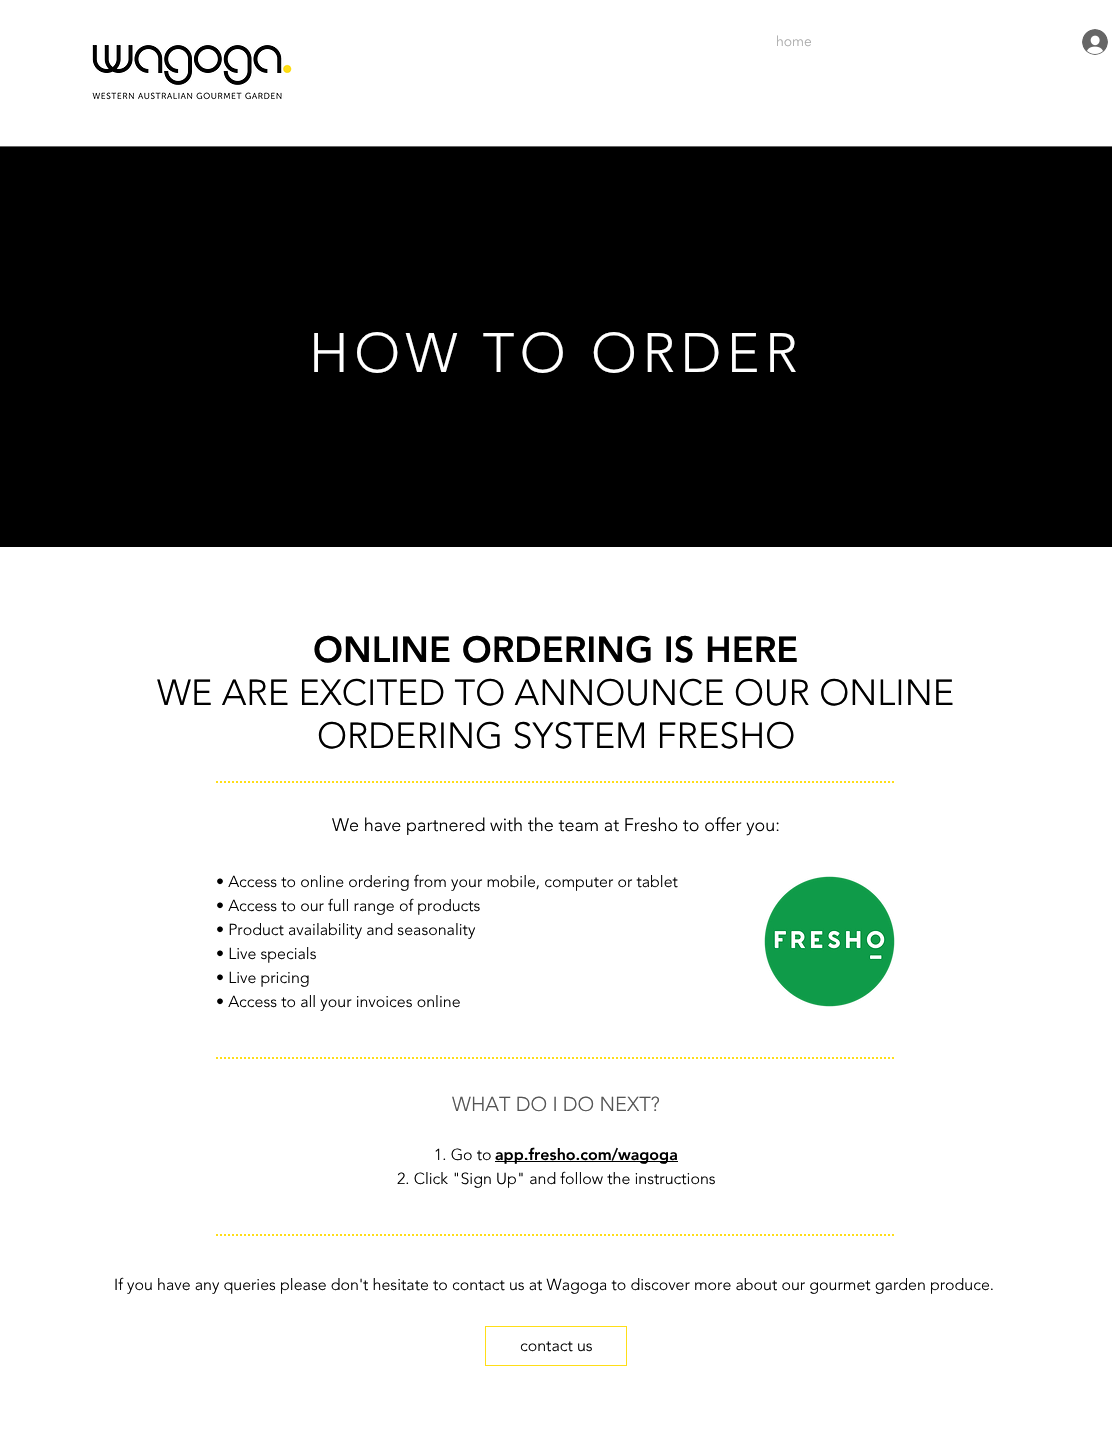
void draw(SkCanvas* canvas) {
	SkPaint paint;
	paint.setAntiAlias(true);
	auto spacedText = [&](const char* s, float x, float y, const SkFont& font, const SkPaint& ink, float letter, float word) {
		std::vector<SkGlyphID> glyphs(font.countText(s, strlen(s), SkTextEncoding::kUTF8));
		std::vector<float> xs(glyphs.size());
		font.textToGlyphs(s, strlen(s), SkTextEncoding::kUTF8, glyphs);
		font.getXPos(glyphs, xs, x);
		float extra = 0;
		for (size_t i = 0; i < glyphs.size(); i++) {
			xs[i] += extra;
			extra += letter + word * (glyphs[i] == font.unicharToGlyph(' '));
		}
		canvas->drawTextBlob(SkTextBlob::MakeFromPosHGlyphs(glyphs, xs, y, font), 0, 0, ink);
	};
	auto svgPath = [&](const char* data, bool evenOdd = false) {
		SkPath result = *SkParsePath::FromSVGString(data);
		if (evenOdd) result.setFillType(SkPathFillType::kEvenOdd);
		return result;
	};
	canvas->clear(0xffffffff);
	SkFont f1(fontMgr->matchFamilyStyle("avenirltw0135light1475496", SkFontStyle(300, SkFontStyle::kNormal_Width, SkFontStyle::kUpright_Slant)), 14);
	f1.setSubpixel(true);
	paint.setColor(0xffaaaaaa);
	canvas->drawString("home", 776, 46, f1, paint);
	canvas->drawImageRect(SkImages::DeferredFromEncodedData(SkData::MakeFromFileName("img1.png")), SkRect::MakeXYWH(1082, 29, 26, 26), SkSamplingOptions());
	canvas->drawImageRect(SkImages::DeferredFromEncodedData(SkData::MakeFromFileName("img2.png")), SkRect::MakeXYWH(92, 43, 200, 57), SkSamplingOptions());
	paint.setColor(0xff666666);
	canvas->drawRect(SkRect::MakeXYWH(0, 146, 1112, 1), paint);
	paint.setColor(0xff000000);
	canvas->drawRect(SkRect::MakeXYWH(0, 147, 1112, 400), paint);
	SkFont f2(fontMgr->matchFamilyStyle("avenirltw0135light1475496", SkFontStyle(300, SkFontStyle::kNormal_Width, SkFontStyle::kUpright_Slant)), 55);
	f2.setSubpixel(true);
	paint.setColor(0xffffffff);
	spacedText("HOW TO ORDER", 309, 372, f2, paint, 5.5, 0);
	SkFont f3(fontMgr->matchFamilyStyle("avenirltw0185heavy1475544", SkFontStyle(900, SkFontStyle::kNormal_Width, SkFontStyle::kUpright_Slant)), 36);
	f3.setSubpixel(true);
	paint.setColor(0xff000000);
	canvas->drawString("ONLINE ORDERING IS HERE", 313, 662, f3, paint);
	SkFont f4(fontMgr->matchFamilyStyle("avenirltw0135light1475496", SkFontStyle(300, SkFontStyle::kNormal_Width, SkFontStyle::kUpright_Slant)), 36);
	f4.setSubpixel(true);
	canvas->drawString("WE ARE EXCITED TO ANNOUNCE OUR ONLINE", 157, 705, f4, paint);
	canvas->drawString("ORDERING SYSTEM FRESHO", 317, 748, f4, paint);
	SkFont f5(fontMgr->matchFamilyStyle("avenirltw0135light1475496", SkFontStyle(300, SkFontStyle::kNormal_Width, SkFontStyle::kUpright_Slant)), 18);
	f5.setSubpixel(true);
	canvas->drawString("We have partnered with the team at Fresho to offer you:", 332, 831, f5, paint);
	paint.setStroke(true);
	paint.setStrokeWidth(2);
	paint.setColor(0xffffde17);
	paint.setPathEffect(SkDashPathEffect::Make({{2, 2}}, 0));
	canvas->drawPath(svgPath("M216 782H896"), paint);
	paint.setPathEffect(nullptr);
	SkFont f6(fontMgr->matchFamilyStyle("avenirltw0135light1475496", SkFontStyle(300, SkFontStyle::kNormal_Width, SkFontStyle::kUpright_Slant)), 16);
	f6.setSubpixel(true);
	paint.setStroke(false);
	paint.setColor(0xff000000);
	canvas->drawString("• Access to online ordering from your mobile, computer or tablet", 216, 887, f6, paint);
	canvas->drawString("• Access to our full range of products", 216, 911, f6, paint);
	canvas->drawString("• Product availability and seasonality", 216, 935, f6, paint);
	canvas->drawString("• Live specials", 216, 959, f6, paint);
	canvas->drawString("• Live pricing", 216, 983, f6, paint);
	canvas->drawString("• Access to all your invoices online", 216, 1007, f6, paint);
	canvas->drawImageRect(SkImages::DeferredFromEncodedData(SkData::MakeFromFileName("img3.png")), SkRect::MakeXYWH(764, 876, 131, 131), SkSamplingOptions());
	paint.setStroke(true);
	paint.setColor(0xffffde17);
	paint.setPathEffect(SkDashPathEffect::Make({{2, 2}}, 0));
	canvas->drawPath(svgPath("M216 1058H896"), paint);
	paint.setPathEffect(nullptr);
	SkFont f7(fontMgr->matchFamilyStyle("avenirltw0135light1475496", SkFontStyle(300, SkFontStyle::kNormal_Width, SkFontStyle::kUpright_Slant)), 20);
	f7.setSubpixel(true);
	paint.setStroke(false);
	paint.setColor(0xff555555);
	canvas->drawString("WHAT DO I DO NEXT?", 452, 1111, f7, paint);
	paint.setColor(0xff000000);
	canvas->drawString("1. Go to", 434, 1160, f6, paint);
	canvas->drawRect(SkRect::MakeXYWH(495, 1161, 183, 1), paint);
	SkFont f8(fontMgr->matchFamilyStyle("avenirltw0185heavy1475544", SkFontStyle(900, SkFontStyle::kNormal_Width, SkFontStyle::kUpright_Slant)), 16);
	f8.setSubpixel(true);
	canvas->drawString("app.fresho.com/wagoga", 495, 1160, f8, paint);
	canvas->drawString("2. Click \"Sign Up\" and follow the instructions", 397, 1184, f6, paint);
	paint.setStroke(true);
	paint.setColor(0xffffde17);
	paint.setPathEffect(SkDashPathEffect::Make({{2, 2}}, 0));
	canvas->drawPath(svgPath("M216 1235H896"), paint);
	paint.setPathEffect(nullptr);
	paint.setStroke(false);
	paint.setColor(0xff000000);
	canvas->drawString("If you have any queries please don't hesitate to contact us at Wagoga to discover more about our gourmet garden produce.", 114, 1290, f6, paint);
	paint.setStroke(true);
	paint.setStrokeWidth(1);
	paint.setColor(0xffffde17);
	canvas->drawRect(SkRect::MakeXYWH(485.5, 1326.5, 141, 39), paint);
	paint.setStroke(false);
	paint.setColor(0xff000000);
	canvas->drawString("contact us", 520, 1351, f6, paint);
}
